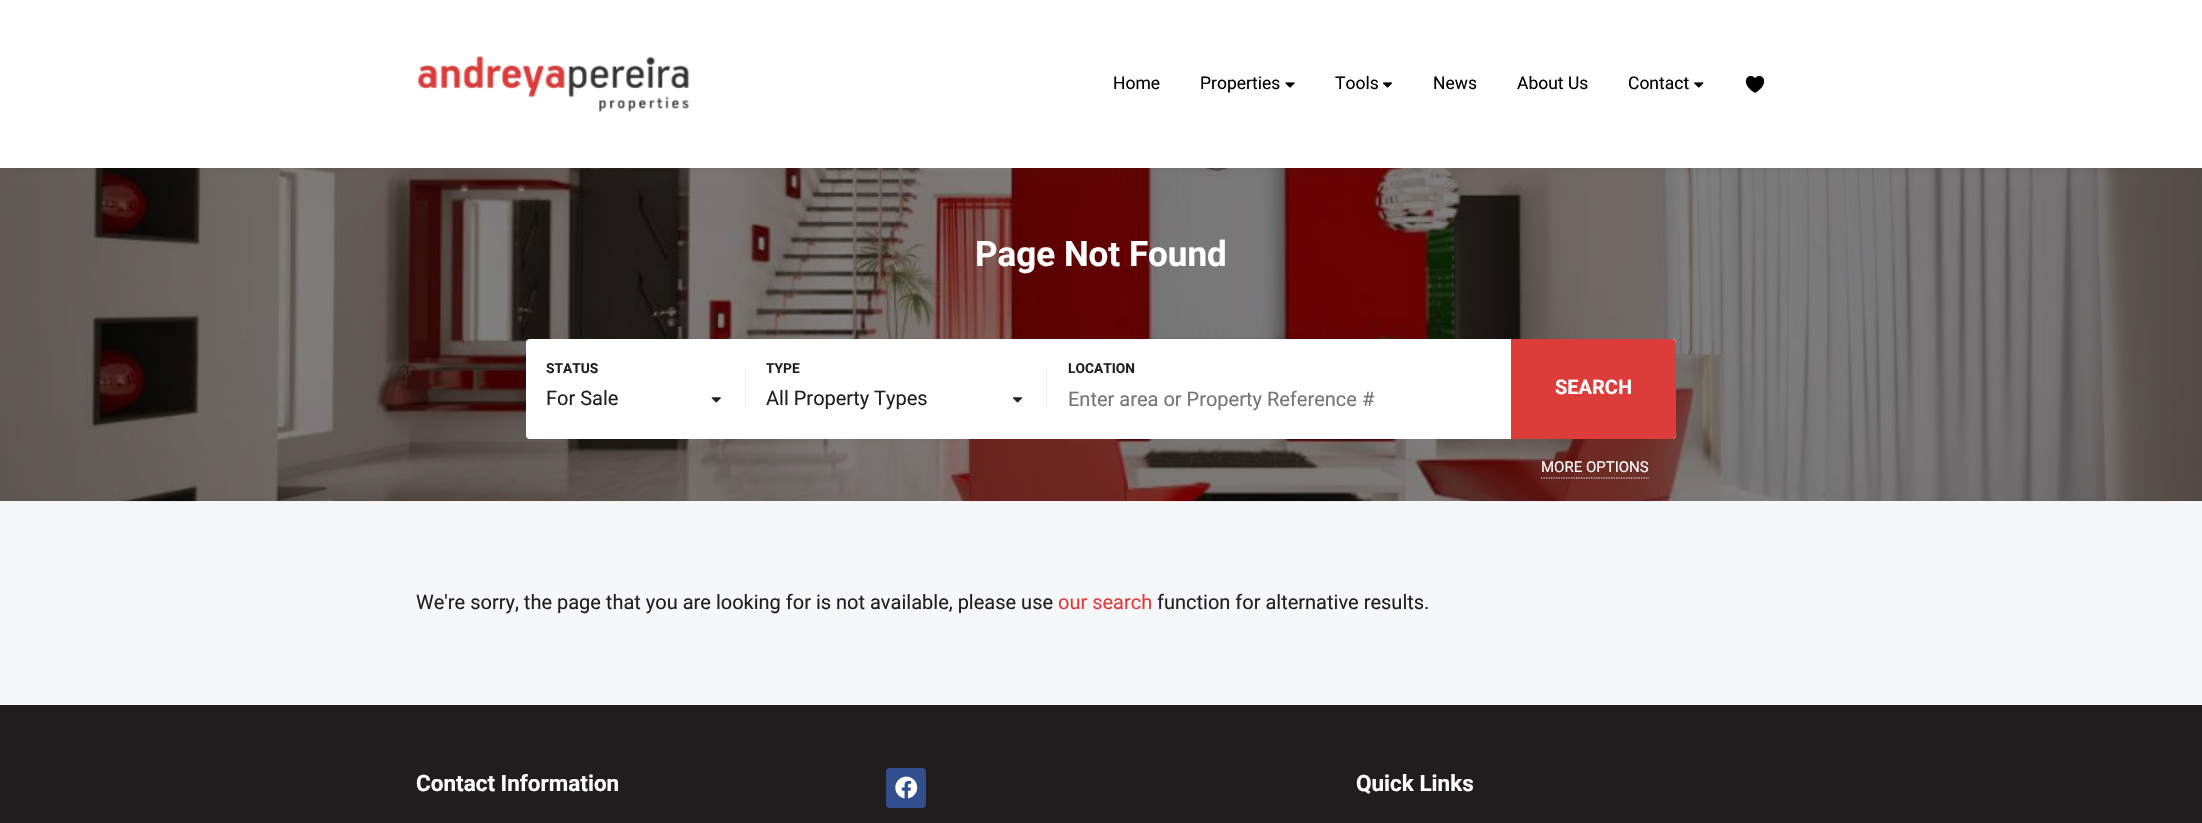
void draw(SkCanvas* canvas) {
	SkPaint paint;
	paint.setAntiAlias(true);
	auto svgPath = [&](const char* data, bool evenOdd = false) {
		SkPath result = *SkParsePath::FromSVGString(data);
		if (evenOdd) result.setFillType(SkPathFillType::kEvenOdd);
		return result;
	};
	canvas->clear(0xfff6f7f9);
	canvas->drawImageRect(SkImages::DeferredFromEncodedData(SkData::MakeFromFileName("img6.png")), SkRect::MakeXYWH(0, 168, 2202, 334), SkSamplingOptions());
	paint.setColor(0x14323232);
	paint.setMaskFilter(SkMaskFilter::MakeBlur(kNormal_SkBlurStyle, 5));
	canvas->drawRect(SkRect::MakeXYWH(0, 3, 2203, 167), paint);
	paint.setMaskFilter(nullptr);
	paint.setColor(0xffffffff);
	canvas->drawRect(SkRect::MakeXYWH(0, 0, 2202, 168), paint);
	canvas->drawImageRect(SkImages::DeferredFromEncodedData(SkData::MakeFromFileName("img1.png")), SkRect::MakeXYWH(416, 55, 274, 57), SkSamplingOptions());
	SkFont f1(fontMgr->matchFamilyStyle("Roboto", SkFontStyle::Normal()), 17.5);
	f1.setSubpixel(true);
	paint.setColor(0xff000000);
	canvas->drawString("Home", 1113, 89, f1, paint);
	canvas->drawString("Properties", 1200, 89, f1, paint);
	canvas->drawImageRect(SkImages::DeferredFromEncodedData(SkData::MakeFromFileName("img2.png")), SkRect::MakeXYWH(1285, 82, 10, 6), SkSamplingOptions());
	canvas->drawString("Tools", 1335, 89, f1, paint);
	canvas->drawImageRect(SkImages::DeferredFromEncodedData(SkData::MakeFromFileName("img3.png")), SkRect::MakeXYWH(1383, 82, 10, 6), SkSamplingOptions());
	canvas->drawString("News", 1433, 89, f1, paint);
	canvas->drawString("About Us", 1517, 89, f1, paint);
	canvas->drawString("Contact", 1628, 89, f1, paint);
	canvas->drawImageRect(SkImages::DeferredFromEncodedData(SkData::MakeFromFileName("img4.png")), SkRect::MakeXYWH(1694, 82, 10, 6), SkSamplingOptions());
	canvas->drawImageRect(SkImages::DeferredFromEncodedData(SkData::MakeFromFileName("img5.png")), SkRect::MakeXYWH(1745, 75, 20, 18), SkSamplingOptions());
	SkFont f2(fontMgr->matchFamilyStyle("Roboto", SkFontStyle::Bold()), 35);
	f2.setSubpixel(true);
	paint.setColor(0xffffffff);
	canvas->drawString("Page Not Found", 975, 266, f2, paint);
	canvas->drawRoundRect(SkRect::MakeXYWH(526, 339, 1150, 100), 4, 4, paint);
	SkFont f3(fontMgr->matchFamilyStyle("Roboto", SkFontStyle::Bold()), 13.75);
	f3.setSubpixel(true);
	paint.setColor(0xff221e1f);
	canvas->drawString("STATUS", 546, 373, f3, paint);
	paint.setColor(0xffececec);
	canvas->drawRect(SkRect::MakeXYWH(745, 369, 1, 40), paint);
	SkFont f4(fontMgr->matchFamilyStyle("Roboto", SkFontStyle::Normal()), 20);
	f4.setSubpixel(true);
	paint.setColor(0xff221e1f);
	canvas->drawString("For Sale", 546, 405, f4, paint);
	canvas->drawImageRect(SkImages::DeferredFromEncodedData(SkData::MakeFromFileName("img7.png")), SkRect::MakeXYWH(711, 397, 10, 6), SkSamplingOptions());
	canvas->drawString("TYPE", 766, 373, f3, paint);
	canvas->drawString("All Property Types", 766, 405, f4, paint);
	canvas->drawImageRect(SkImages::DeferredFromEncodedData(SkData::MakeFromFileName("img8.png")), SkRect::MakeXYWH(1013, 397, 10, 6), SkSamplingOptions());
	paint.setColor(0xffececec);
	canvas->drawRect(SkRect::MakeXYWH(1046, 369, 1, 40), paint);
	paint.setColor(0xff221e1f);
	canvas->drawString("LOCATION", 1068, 373, f3, paint);
	paint.setColor(0xff757575);
	canvas->drawString("Enter area or Property Reference #", 1068, 406, f4, paint);
	paint.setColor(0xffdc3d3a);
	canvas->drawPath(svgPath("M1511 339H1672C1674 339 1676 341 1676 343V435C1676 437 1674 439 1672 439H1511Z"), paint);
	SkFont f5(fontMgr->matchFamilyStyle("Roboto", SkFontStyle::Bold()), 20);
	f5.setSubpixel(true);
	paint.setColor(0xffffffff);
	canvas->drawString("SEARCH", 1555, 394, f5, paint);
	paint.setStroke(true);
	paint.setStrokeWidth(1.2);
	paint.setPathEffect(SkDashPathEffect::Make({{1.25f, 1.25f}}, 0));
	canvas->drawPath(svgPath("M1541 478H1649"), paint);
	paint.setPathEffect(nullptr);
	SkFont f6(fontMgr->matchFamilyStyle("Roboto", SkFontStyle::Normal()), 15);
	f6.setSubpixel(true);
	paint.setStroke(false);
	canvas->drawString("MORE OPTIONS", 1541, 472, f6, paint);
	paint.setColor(0xff221e1f);
	canvas->drawString("We're sorry, the page that you are looking for is not available, please use", 416, 609, f4, paint);
	paint.setColor(0xffdc3d3a);
	canvas->drawString("our search", 1058, 609, f4, paint);
	paint.setColor(0xff221e1f);
	canvas->drawString("function for alternative results.", 1157, 609, f4, paint);
	paint.setColor(0xff211d1e);
	canvas->drawRect(SkRect::MakeXYWH(0, 705, 2202, 118), paint);
	SkFont f7(fontMgr->matchFamilyStyle("Roboto", SkFontStyle::Bold()), 22.5);
	f7.setSubpixel(true);
	paint.setColor(0xffffffff);
	canvas->drawString("Contact Information", 416, 791, f7, paint);
	paint.setColor(0xff314f8e);
	canvas->drawRoundRect(SkRect::MakeXYWH(886, 768, 40, 40), 4, 4, paint);
	canvas->drawImageRect(SkImages::DeferredFromEncodedData(SkData::MakeFromFileName("img9.png")), SkRect::MakeXYWH(895, 776, 23, 23), SkSamplingOptions());
	paint.setColor(0xffffffff);
	canvas->drawString("Quick Links", 1356, 791, f7, paint);
}
